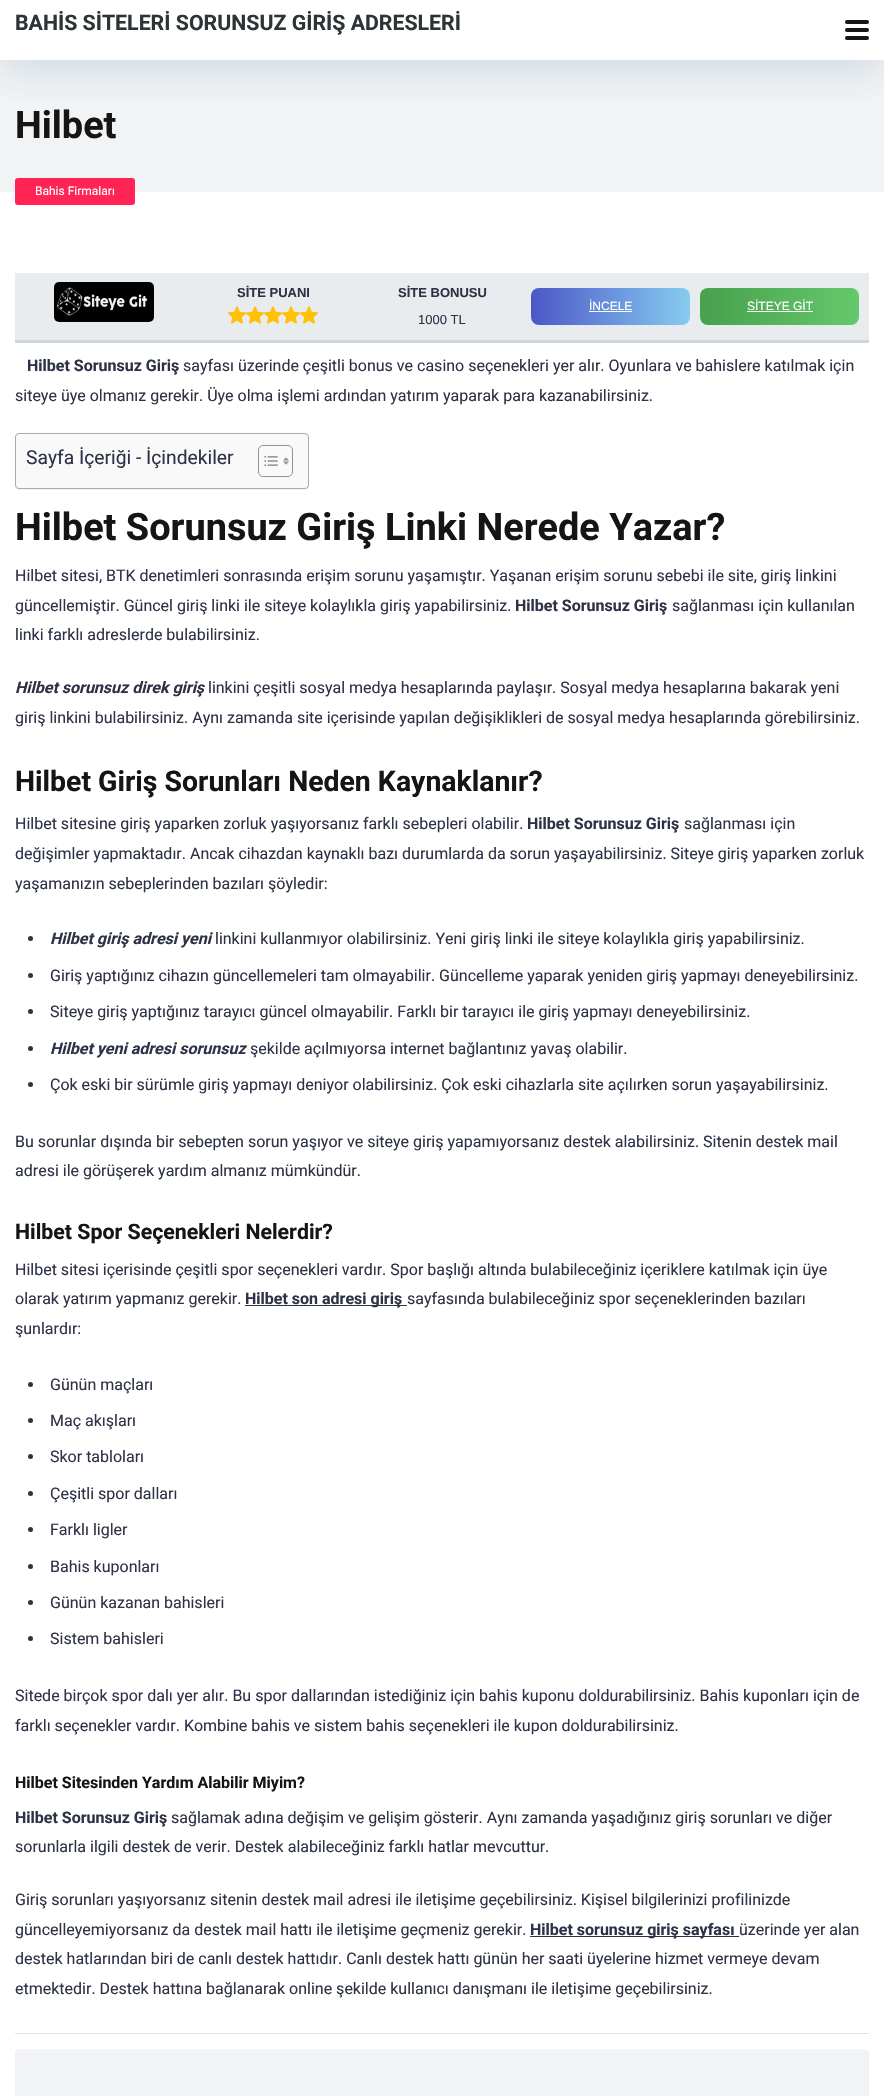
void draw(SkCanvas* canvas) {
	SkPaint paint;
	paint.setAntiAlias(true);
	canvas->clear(0xffffffff);
	paint.setColor(0xfff1f3f4);
	canvas->drawRect(SkRect::MakeXYWH(0, 60, 884, 132), paint);
	canvas->save();
	canvas->clipRect(SkRect::MakeXYWH(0, 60, 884, 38));
	paint.setColor(0x406d8dad);
	paint.setMaskFilter(SkMaskFilter::MakeBlur(kNormal_SkBlurStyle, 20));
	canvas->drawRect(SkRect::MakeXYWH(0, 10, 884, 60), paint);
	paint.setMaskFilter(nullptr);
	canvas->restore();
	SkFont f1(fontMgr->matchFamilyStyle("Roboto", SkFontStyle::Bold()), 21.3);
	f1.setSubpixel(true);
	paint.setColor(0xff2d3436);
	canvas->drawString("BAHİS SİTELERİ SORUNSUZ GİRİŞ ADRESLERİ", 15, 30, f1, paint);
	paint.setColor(0xff151515);
	canvas->drawRoundRect(SkRect::MakeXYWH(845, 20, 24, 4), 2, 2, paint);
	canvas->drawRoundRect(SkRect::MakeXYWH(845, 28, 24, 4), 2, 2, paint);
	canvas->drawRoundRect(SkRect::MakeXYWH(845, 36, 24, 4), 2, 2, paint);
	SkFont f2(fontMgr->matchFamilyStyle("Roboto", SkFontStyle::Bold()), 37.9);
	f2.setSubpixel(true);
	canvas->drawString("Hilbet", 15, 138, f2, paint);
	paint.setColor(0xffff2453);
	canvas->drawRoundRect(SkRect::MakeXYWH(15, 178, 120, 27), 3, 3, paint);
	SkFont f3(fontMgr->matchFamilyStyle("Roboto", SkFontStyle::Normal()), 12);
	f3.setSubpixel(true);
	paint.setColor(0xffffffff);
	canvas->drawString("Bahis Firmaları", 35, 195, f3, paint);
	paint.setColor(0xffdfe6e9);
	canvas->drawRect(SkRect::MakeXYWH(15, 2033, 854, 1), paint);
	paint.setColor(0xffe9ecef);
	canvas->drawRect(SkRect::MakeXYWH(15, 273, 854, 67), paint);
	paint.setColor(0xffd0d5da);
	canvas->drawRect(SkRect::MakeXYWH(15, 340, 854, 3), paint);
	canvas->drawImageRect(SkImages::DeferredFromEncodedData(SkData::MakeFromFileName("img1.png")), SkRect::MakeXYWH(54, 282, 100, 40), SkSamplingOptions());
	SkFont f4(fontMgr->matchFamilyStyle("Liberation Sans", SkFontStyle::Bold()), 13);
	f4.setSubpixel(true);
	paint.setColor(0xff2e3246);
	canvas->drawString("SİTE PUANI", 237, 297, f4, paint);
	canvas->drawImageRect(SkImages::DeferredFromEncodedData(SkData::MakeFromFileName("img2.png")), SkRect::MakeXYWH(228, 306, 18, 18), SkSamplingOptions());
	canvas->drawImageRect(SkImages::DeferredFromEncodedData(SkData::MakeFromFileName("img2.png")), SkRect::MakeXYWH(246, 306, 18, 18), SkSamplingOptions());
	canvas->drawImageRect(SkImages::DeferredFromEncodedData(SkData::MakeFromFileName("img2.png")), SkRect::MakeXYWH(264, 306, 18, 18), SkSamplingOptions());
	canvas->drawImageRect(SkImages::DeferredFromEncodedData(SkData::MakeFromFileName("img2.png")), SkRect::MakeXYWH(282, 306, 18, 18), SkSamplingOptions());
	canvas->drawImageRect(SkImages::DeferredFromEncodedData(SkData::MakeFromFileName("img2.png")), SkRect::MakeXYWH(300, 306, 18, 18), SkSamplingOptions());
	canvas->drawString("SİTE BONUSU", 398, 297, f4, paint);
	SkFont f5(fontMgr->matchFamilyStyle("Liberation Sans", SkFontStyle::Normal()), 13);
	f5.setSubpixel(true);
	canvas->drawString("1000 TL", 418, 324, f5, paint);
	{
		const SkColor colors[] = {0xff4c57c7, 0xff93e6f9, 0xff93e6f9};
		const float stops[] = {0, 0.61, 1};
		const SkPoint ends[] = {{531, 307}, {849, 307}};
		paint.setShader(SkGradientShader::MakeLinear(ends, colors, stops, 3, SkTileMode::kClamp));
		paint.setAlpha(255);
	}
	canvas->drawRoundRect(SkRect::MakeXYWH(531, 288, 159, 37), 8, 8, paint);
	SkFont f6(fontMgr->matchFamilyStyle("Liberation Sans", SkFontStyle::Normal()), 12);
	f6.setSubpixel(true);
	paint.setShader(nullptr);
	paint.setColor(0xffffffff);
	canvas->drawString("İNCELE", 589, 310, f6, paint);
	canvas->drawRect(SkRect::MakeXYWH(589, 311, 43, 1), paint);
	{
		const SkColor colors[] = {0xff48a14d, 0xff66c96c, 0xff66c96c};
		const float stops[] = {0, 0.51, 1};
		const SkPoint ends[] = {{700, 307}, {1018, 307}};
		paint.setShader(SkGradientShader::MakeLinear(ends, colors, stops, 3, SkTileMode::kClamp));
		paint.setAlpha(255);
	}
	canvas->drawRoundRect(SkRect::MakeXYWH(700, 288, 159, 37), 8, 8, paint);
	paint.setShader(nullptr);
	paint.setColor(0xffffffff);
	canvas->drawString("SİTEYE GİT", 747, 310, f6, paint);
	canvas->drawRect(SkRect::MakeXYWH(747, 311, 66, 1), paint);
	SkFont f7(fontMgr->matchFamilyStyle("Roboto", SkFontStyle::Bold()), 16);
	f7.setSubpixel(true);
	paint.setColor(0xff2e3246);
	canvas->drawString("Hilbet Sorunsuz Giriş", 27, 371, f7, paint);
	SkFont f8(fontMgr->matchFamilyStyle("Roboto", SkFontStyle::Normal()), 16);
	f8.setSubpixel(true);
	canvas->drawString("sayfası üzerinde çeşitli bonus ve casino seçenekleri yer alır. Oyunlara ve bahislere katılmak için", 183, 371, f8, paint);
	canvas->drawString("siteye üye olmanız gerekir. Üye olma işlemi ardından yatırım yaparak para kazanabilirsiniz.", 15, 401, f8, paint);
	paint.setColor(0x0d000000);
	paint.setMaskFilter(SkMaskFilter::MakeBlur(kNormal_SkBlurStyle, 0.5));
	canvas->drawRoundRect(SkRect::MakeXYWH(15, 434, 294, 56), 4, 4, paint);
	paint.setMaskFilter(nullptr);
	paint.setColor(0xfff9f9f9);
	canvas->drawRoundRect(SkRect::MakeXYWH(15.5, 433.5, 293, 55), 3.5, 3.5, paint);
	paint.setStroke(true);
	paint.setStrokeWidth(1);
	paint.setColor(0xffaaaaaa);
	canvas->drawRoundRect(SkRect::MakeXYWH(15.5, 433.5, 293, 55), 3.5, 3.5, paint);
	SkFont f9(fontMgr->matchFamilyStyle("Roboto", SkFontStyle::Normal()), 19.25);
	f9.setSubpixel(true);
	paint.setStroke(false);
	paint.setColor(0xff2e3246);
	canvas->drawString("Sayfa İçeriği - İçindekiler", 26, 464, f9, paint);
	paint.setStroke(true);
	paint.setColor(0xff999191);
	canvas->drawRoundRect(SkRect::MakeXYWH(258.5, 445.5, 34, 31), 4.5, 4.5, paint);
	canvas->drawImageRect(SkImages::DeferredFromEncodedData(SkData::MakeFromFileName("img3.png")), SkRect::MakeXYWH(264, 456, 14, 10), SkSamplingOptions());
	canvas->drawImageRect(SkImages::DeferredFromEncodedData(SkData::MakeFromFileName("img4.png")), SkRect::MakeXYWH(283, 457, 6, 8), SkSamplingOptions());
	paint.setStroke(false);
	paint.setColor(0xff151515);
	canvas->drawString("Hilbet Sorunsuz Giriş Linki Nerede Yazar?", 15, 540, f2, paint);
	paint.setColor(0xff2e3246);
	canvas->drawString("Hilbet sitesi, BTK denetimleri sonrasında erişim sorunu yaşamıştır. Yaşanan erişim sorunu sebebi ile site, giriş linkini", 15, 581, f8, paint);
	canvas->drawString("güncellemiştir. Güncel giriş linki ile siteye kolaylıkla giriş yapabilirsiniz.", 15, 611, f8, paint);
	canvas->drawString("Hilbet Sorunsuz Giriş", 515, 611, f7, paint);
	canvas->drawString("sağlanması için kullanılan", 672, 611, f8, paint);
	canvas->drawString("linki farklı adreslerde bulabilirsiniz.", 15, 640, f8, paint);
	SkFont f10(fontMgr->matchFamilyStyle("Roboto", SkFontStyle::BoldItalic()), 16);
	f10.setSubpixel(true);
	canvas->drawString("Hilbet sorunsuz direk giriş", 15, 693, f10, paint);
	canvas->drawString("linkini çeşitli sosyal medya hesaplarında paylaşır. Sosyal medya hesaplarına bakarak yeni", 208, 693, f8, paint);
	canvas->drawString("giriş linkini bulabilirsiniz. Aynı zamanda site içerisinde yapılan değişiklikleri de sosyal medya hesaplarında görebilirsiniz.", 15, 723, f8, paint);
	SkFont f11(fontMgr->matchFamilyStyle("Roboto", SkFontStyle::Bold()), 28.4);
	f11.setSubpixel(true);
	paint.setColor(0xff151515);
	canvas->drawString("Hilbet Giriş Sorunları Neden Kaynaklanır?", 15, 791, f11, paint);
	paint.setColor(0xff2e3246);
	canvas->drawString("Hilbet sitesine giriş yaparken zorluk yaşıyorsanız farklı sebepleri olabilir.", 15, 829, f8, paint);
	canvas->drawString("Hilbet Sorunsuz Giriş", 527, 829, f7, paint);
	canvas->drawString("sağlanması için", 684, 829, f8, paint);
	canvas->drawString("değişimler yapmaktadır. Ancak cihazdan kaynaklı bazı durumlarda da sorun yaşayabilirsiniz. Siteye giriş yaparken zorluk", 15, 859, f8, paint);
	canvas->drawString("yaşamanızın sebeplerinden bazıları şöyledir:", 15, 889, f8, paint);
	canvas->drawCircle(30.5, 938.5, 2.5, paint);
	canvas->drawString("Hilbet giriş adresi yeni", 50, 944, f10, paint);
	canvas->drawString("linkini kullanmıyor olabilirsiniz. Yeni giriş linki ile siteye kolaylıkla giriş yapabilirsiniz.", 215, 944, f8, paint);
	canvas->drawCircle(30.5, 975.5, 2.5, paint);
	canvas->drawString("Giriş yaptığınız cihazın güncellemeleri tam olmayabilir. Güncelleme yaparak yeniden giriş yapmayı deneyebilirsiniz.", 50, 981, f8, paint);
	canvas->drawCircle(30.5, 1011.5, 2.5, paint);
	canvas->drawString("Siteye giriş yaptığınız tarayıcı güncel olmayabilir. Farklı bir tarayıcı ile giriş yapmayı deneyebilirsiniz.", 50, 1017, f8, paint);
	canvas->drawCircle(30.5, 1048.5, 2.5, paint);
	canvas->drawString("Hilbet yeni adresi sorunsuz", 50, 1054, f10, paint);
	canvas->drawString("şekilde açılmıyorsa internet bağlantınız yavaş olabilir.", 250, 1054, f8, paint);
	canvas->drawCircle(30.5, 1084.5, 2.5, paint);
	canvas->drawString("Çok eski bir sürümle giriş yapmayı deniyor olabilirsiniz. Çok eski cihazlarla site açılırken sorun yaşayabilirsiniz.", 50, 1090, f8, paint);
	canvas->drawString("Bu sorunlar dışında bir sebepten sorun yaşıyor ve siteye giriş yapamıyorsanız destek alabilirsiniz. Sitenin destek mail", 15, 1147, f8, paint);
	canvas->drawString("adresi ile görüşerek yardım almanız mümkündür.", 15, 1176, f8, paint);
	paint.setColor(0xff151515);
	canvas->drawString("Hilbet Spor Seçenekleri Nelerdir?", 15, 1239, f1, paint);
	paint.setColor(0xff2e3246);
	canvas->drawString("Hilbet sitesi içerisinde çeşitli spor seçenekleri vardır. Spor başlığı altında bulabileceğiniz içeriklere katılmak için üye", 15, 1275, f8, paint);
	canvas->drawString("olarak yatırım yapmanız gerekir.", 15, 1304, f8, paint);
	canvas->drawRect(SkRect::MakeXYWH(245, 1305, 162, 1), paint);
	canvas->drawString("Hilbet son adresi giriş", 245, 1304, f7, paint);
	canvas->drawString("sayfasında bulabileceğiniz spor seçeneklerinden bazıları", 407, 1304, f8, paint);
	canvas->drawString("şunlardır:", 15, 1334, f8, paint);
	canvas->drawCircle(30.5, 1384.5, 2.5, paint);
	canvas->drawString("Günün maçları", 50, 1390, f8, paint);
	canvas->drawCircle(30.5, 1420.5, 2.5, paint);
	canvas->drawString("Maç akışları", 50, 1426, f8, paint);
	canvas->drawCircle(30.5, 1456.5, 2.5, paint);
	canvas->drawString("Skor tabloları", 50, 1462, f8, paint);
	canvas->drawCircle(30.5, 1493.5, 2.5, paint);
	canvas->drawString("Çeşitli spor dalları", 50, 1499, f8, paint);
	canvas->drawCircle(30.5, 1529.5, 2.5, paint);
	canvas->drawString("Farklı ligler", 50, 1535, f8, paint);
	canvas->drawCircle(30.5, 1566.5, 2.5, paint);
	canvas->drawString("Bahis kuponları", 50, 1572, f8, paint);
	canvas->drawCircle(30.5, 1602.5, 2.5, paint);
	canvas->drawString("Günün kazanan bahisleri", 50, 1608, f8, paint);
	canvas->drawCircle(30.5, 1638.5, 2.5, paint);
	canvas->drawString("Sistem bahisleri", 50, 1644, f8, paint);
	canvas->drawString("Sitede birçok spor dalı yer alır. Bu spor dallarından istediğiniz için bahis kuponu doldurabilirsiniz. Bahis kuponları için de", 15, 1701, f8, paint);
	canvas->drawString("farklı seçenekler vardır. Kombine bahis ve sistem bahis seçenekleri ile kupon doldurabilirsiniz.", 15, 1731, f8, paint);
	paint.setColor(0xff151515);
	canvas->drawString("Hilbet Sitesinden Yardım Alabilir Miyim?", 15, 1788, f7, paint);
	paint.setColor(0xff2e3246);
	canvas->drawString("Hilbet Sorunsuz Giriş", 15, 1823, f7, paint);
	canvas->drawString("sağlamak adına değişim ve gelişim gösterir. Aynı zamanda yaşadığınız giriş sorunları ve diğer", 171, 1823, f8, paint);
	canvas->drawString("sorunlarla ilgili destek de verir. Destek alabileceğiniz farklı hatlar mevcuttur.", 15, 1852, f8, paint);
	canvas->drawString("Giriş sorunları yaşıyorsanız sitenin destek mail adresi ile iletişime geçebilirsiniz. Kişisel bilgilerinizi profilinizde", 15, 1905, f8, paint);
	canvas->drawString("güncelleyemiyorsanız da destek mail hattı ile iletişime geçmeniz gerekir.", 15, 1935, f8, paint);
	canvas->drawRect(SkRect::MakeXYWH(530, 1936, 209, 1), paint);
	canvas->drawString("Hilbet sorunsuz giriş sayfası", 530, 1935, f7, paint);
	canvas->drawString("üzerinde yer alan", 739, 1935, f8, paint);
	canvas->drawString("destek hatlarından biri de canlı destek hattıdır. Canlı destek hattı günün her saati üyelerine hizmet vermeye devam", 15, 1964, f8, paint);
	canvas->drawString("etmektedir. Destek hattına bağlanarak online şekilde kullanıcı danışmanı ile iletişime geçebilirsiniz.", 15, 1994, f8, paint);
	paint.setColor(0xfff1f3f4);
	canvas->drawRoundRect(SkRect::MakeXYWH(15, 2049, 854, 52), 5, 5, paint);
}
